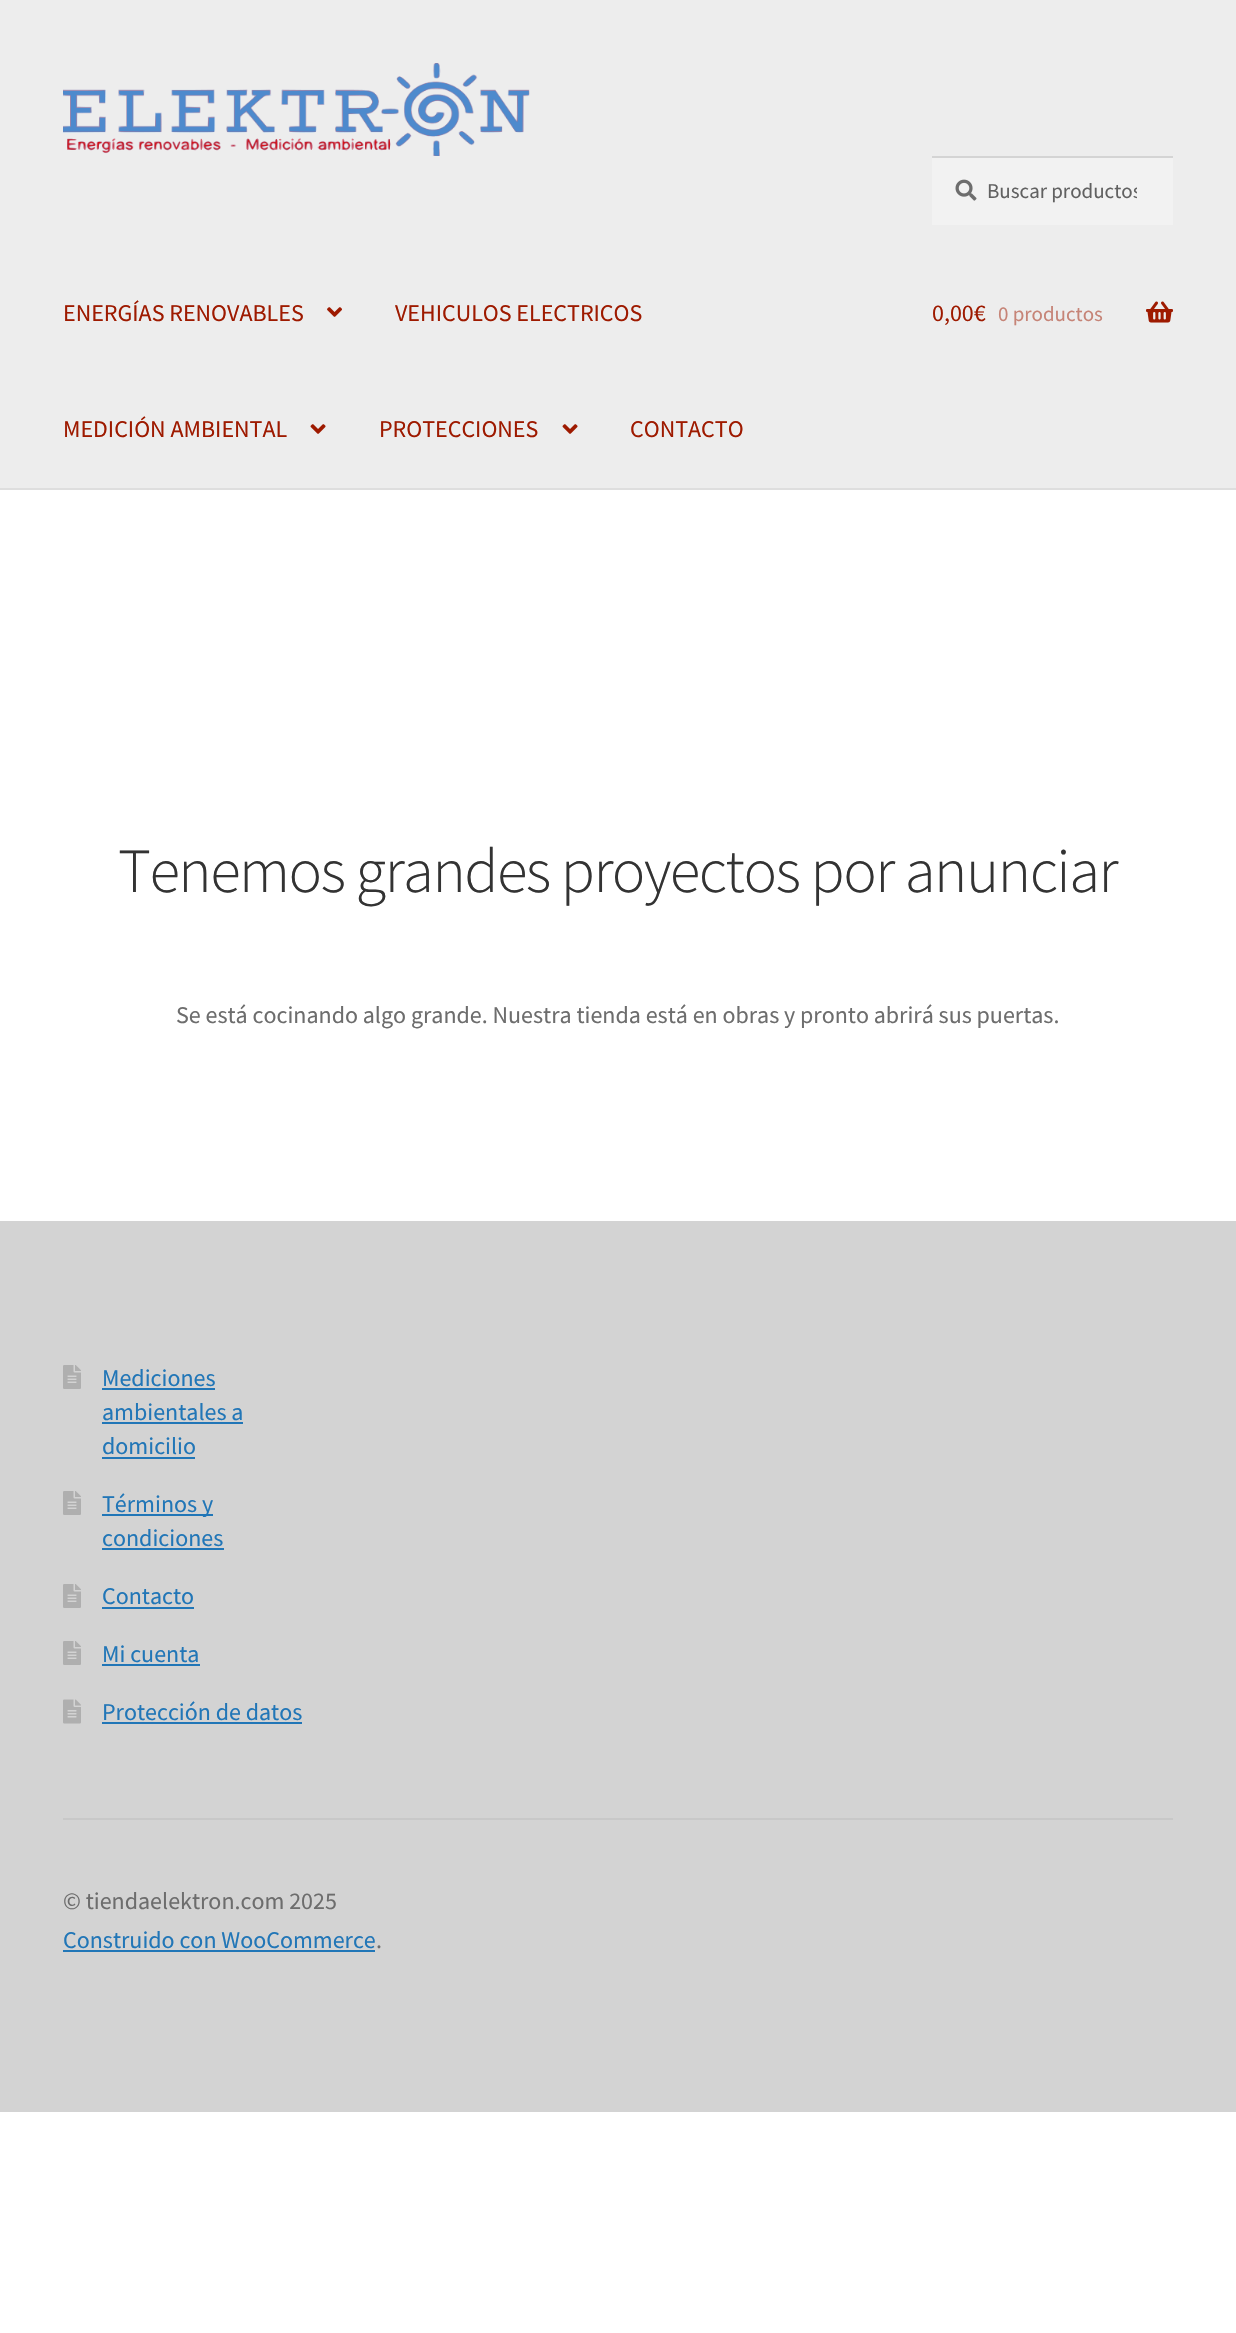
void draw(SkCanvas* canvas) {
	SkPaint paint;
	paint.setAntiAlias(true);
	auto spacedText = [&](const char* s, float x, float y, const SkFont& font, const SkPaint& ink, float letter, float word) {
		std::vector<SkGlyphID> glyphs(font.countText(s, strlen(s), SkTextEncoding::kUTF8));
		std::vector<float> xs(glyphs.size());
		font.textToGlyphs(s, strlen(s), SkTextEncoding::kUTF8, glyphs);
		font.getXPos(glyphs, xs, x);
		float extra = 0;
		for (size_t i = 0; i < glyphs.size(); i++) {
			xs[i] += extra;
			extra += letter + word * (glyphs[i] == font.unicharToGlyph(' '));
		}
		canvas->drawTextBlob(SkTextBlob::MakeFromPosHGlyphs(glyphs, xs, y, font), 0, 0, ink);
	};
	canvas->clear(0xffffffff);
	paint.setColor(0xffededed);
	canvas->drawRect(SkRect::MakeXYWH(0, 0, 1236, 488), paint);
	paint.setColor(0xffdedede);
	canvas->drawRect(SkRect::MakeXYWH(0, 488, 1236, 2), paint);
	canvas->drawImageRect(SkImages::DeferredFromEncodedData(SkData::MakeFromFileName("img1.png")), SkRect::MakeXYWH(63, 63, 467, 93), SkSamplingOptions());
	paint.setColor(0xfff2f2f2);
	canvas->drawRect(SkRect::MakeXYWH(932, 158, 241, 67), paint);
	canvas->drawImageRect(SkImages::DeferredFromEncodedData(SkData::MakeFromFileName("img2.png")), SkRect::MakeXYWH(955, 179, 22, 22), SkSamplingOptions());
	paint.setColor(0xffd4d4d4);
	canvas->drawRect(SkRect::MakeXYWH(932, 156, 241, 2), paint);
	canvas->save();
	canvas->clipRect(SkRect::MakeXYWH(987, 177, 150, 27));
	SkFont f1(fontMgr->matchFamilyStyle("Source Sans Pro", SkFontStyle::Normal()), 21);
	f1.setSubpixel(true);
	paint.setColor(0xff616161);
	canvas->drawString("Buscar productos", 987, 198, f1, paint);
	canvas->restore();
	SkFont f2(fontMgr->matchFamilyStyle("Source Sans Pro", SkFontStyle::Normal()), 24);
	f2.setSubpixel(true);
	paint.setColor(0xff9e1a00);
	canvas->drawString("ENERGÍAS RENOVABLES", 63, 321, f2, paint);
	canvas->drawImageRect(SkImages::DeferredFromEncodedData(SkData::MakeFromFileName("img3.png")), SkRect::MakeXYWH(327, 307, 15, 10), SkSamplingOptions());
	canvas->drawString("VEHICULOS ELECTRICOS", 395, 321, f2, paint);
	canvas->drawString("MEDICIÓN AMBIENTAL", 63, 437, f2, paint);
	canvas->drawImageRect(SkImages::DeferredFromEncodedData(SkData::MakeFromFileName("img4.png")), SkRect::MakeXYWH(310, 424, 16, 10), SkSamplingOptions());
	canvas->drawString("PROTECCIONES", 379, 437, f2, paint);
	canvas->drawImageRect(SkImages::DeferredFromEncodedData(SkData::MakeFromFileName("img4.png")), SkRect::MakeXYWH(562, 424, 16, 10), SkSamplingOptions());
	canvas->drawString("CONTACTO", 630, 437, f2, paint);
	canvas->drawString("0,00€", 932, 321, f2, paint);
	paint.setColor(0xffc68477);
	canvas->drawString("0 productos", 998, 321, f1, paint);
	canvas->drawImageRect(SkImages::DeferredFromEncodedData(SkData::MakeFromFileName("img5.png")), SkRect::MakeXYWH(1146, 301, 27, 22), SkSamplingOptions());
	SkFont f3(fontMgr->matchFamilyStyle("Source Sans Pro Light", SkFontStyle(300, SkFontStyle::kNormal_Width, SkFontStyle::kUpright_Slant)), 62.8);
	f3.setSubpixel(true);
	paint.setColor(0xff333333);
	spacedText("Tenemos grandes proyectos por anunciar", 118, 892, f3, paint, -1.5, 0);
	paint.setColor(0xff6d6d6d);
	canvas->drawString("Se está cocinando algo grande. Nuestra tienda está en obras y pronto abrirá sus puertas.", 176, 1023, f2, paint);
	paint.setColor(0xffd3d3d3);
	canvas->drawRect(SkRect::MakeXYWH(0, 1221, 1236, 891), paint);
	paint.setColor(0xffc8c8c8);
	canvas->drawRect(SkRect::MakeXYWH(63, 1818, 1110, 2), paint);
	canvas->drawImageRect(SkImages::DeferredFromEncodedData(SkData::MakeFromFileName("img6.png")), SkRect::MakeXYWH(63, 1365, 18, 24), SkSamplingOptions());
	paint.setColor(0xff2176b7);
	canvas->drawString("Mediciones", 102, 1386, f2, paint);
	canvas->drawRect(SkRect::MakeXYWH(102, 1388, 113, 2), paint);
	canvas->drawString("ambientales a", 102, 1420, f2, paint);
	canvas->drawRect(SkRect::MakeXYWH(102, 1422, 141, 2), paint);
	canvas->drawString("domicilio", 102, 1454, f2, paint);
	canvas->drawRect(SkRect::MakeXYWH(102, 1457, 93, 2), paint);
	canvas->drawImageRect(SkImages::DeferredFromEncodedData(SkData::MakeFromFileName("img6.png")), SkRect::MakeXYWH(63, 1491, 18, 24), SkSamplingOptions());
	canvas->drawRect(SkRect::MakeXYWH(102, 1514, 111, 2), paint);
	canvas->drawString("Términos y", 102, 1512, f2, paint);
	canvas->drawString("condiciones", 102, 1546, f2, paint);
	canvas->drawRect(SkRect::MakeXYWH(102, 1548, 122, 2), paint);
	canvas->drawImageRect(SkImages::DeferredFromEncodedData(SkData::MakeFromFileName("img6.png")), SkRect::MakeXYWH(63, 1584, 18, 24), SkSamplingOptions());
	canvas->drawString("Contacto", 102, 1604, f2, paint);
	canvas->drawRect(SkRect::MakeXYWH(102, 1607, 92, 2), paint);
	canvas->drawImageRect(SkImages::DeferredFromEncodedData(SkData::MakeFromFileName("img6.png")), SkRect::MakeXYWH(63, 1641, 18, 24), SkSamplingOptions());
	canvas->drawString("Mi cuenta", 102, 1662, f2, paint);
	canvas->drawRect(SkRect::MakeXYWH(102, 1664, 98, 2), paint);
	canvas->drawImageRect(SkImages::DeferredFromEncodedData(SkData::MakeFromFileName("img7.png")), SkRect::MakeXYWH(63, 1699, 18, 25), SkSamplingOptions());
	canvas->drawString("Protección de datos", 102, 1720, f2, paint);
	canvas->drawRect(SkRect::MakeXYWH(102, 1722, 200, 2), paint);
	paint.setColor(0xff6d6d6d);
	canvas->drawString("© tiendaelektron.com 2025", 63, 1909, f2, paint);
	paint.setColor(0xff2176b7);
	canvas->drawString("Construido con WooCommerce", 63, 1948, f2, paint);
	canvas->drawRect(SkRect::MakeXYWH(63, 1950, 312, 2), paint);
	paint.setColor(0xff6d6d6d);
	canvas->drawString(".", 376, 1948, f2, paint);
}
